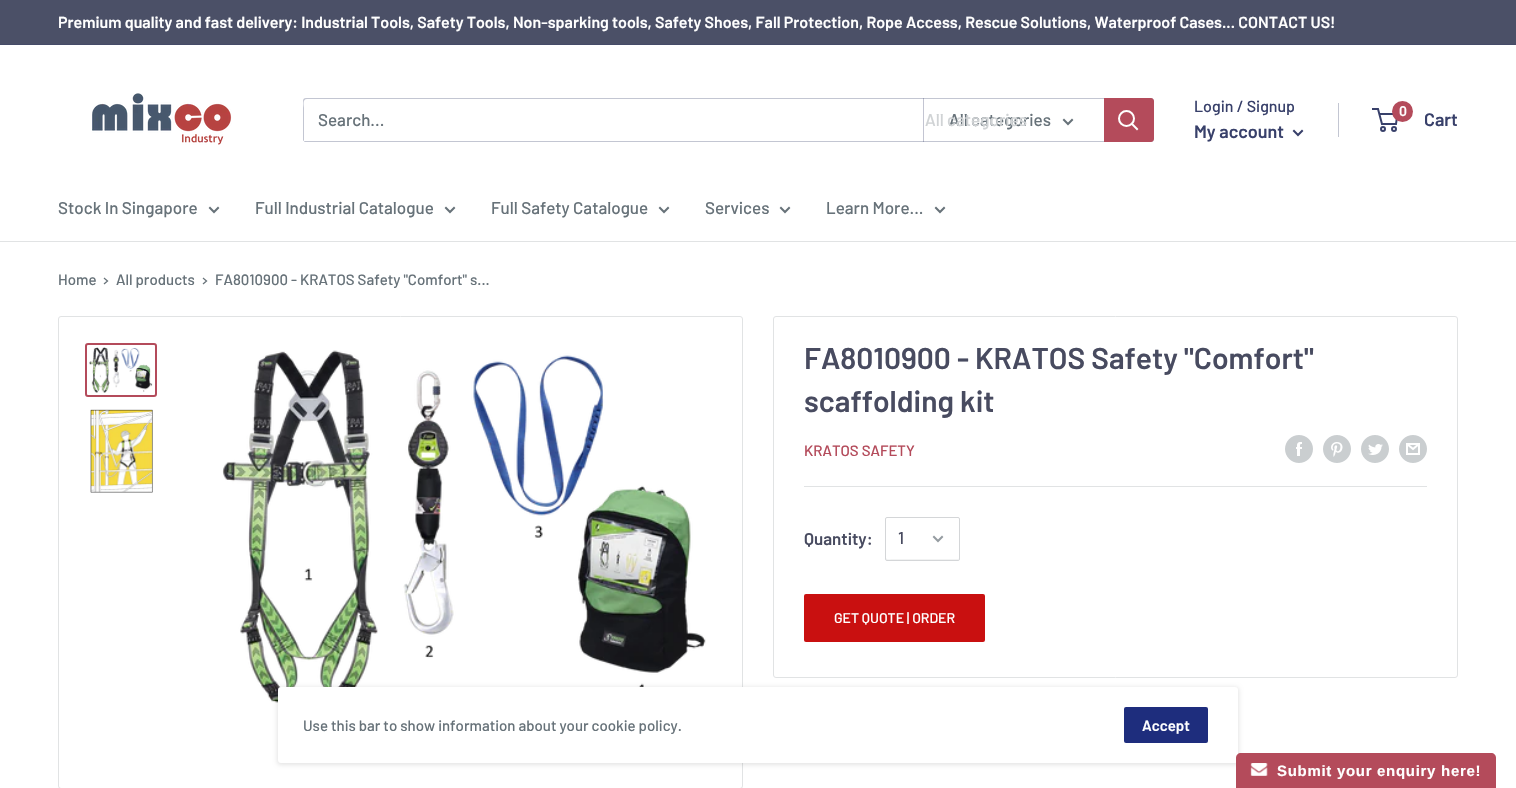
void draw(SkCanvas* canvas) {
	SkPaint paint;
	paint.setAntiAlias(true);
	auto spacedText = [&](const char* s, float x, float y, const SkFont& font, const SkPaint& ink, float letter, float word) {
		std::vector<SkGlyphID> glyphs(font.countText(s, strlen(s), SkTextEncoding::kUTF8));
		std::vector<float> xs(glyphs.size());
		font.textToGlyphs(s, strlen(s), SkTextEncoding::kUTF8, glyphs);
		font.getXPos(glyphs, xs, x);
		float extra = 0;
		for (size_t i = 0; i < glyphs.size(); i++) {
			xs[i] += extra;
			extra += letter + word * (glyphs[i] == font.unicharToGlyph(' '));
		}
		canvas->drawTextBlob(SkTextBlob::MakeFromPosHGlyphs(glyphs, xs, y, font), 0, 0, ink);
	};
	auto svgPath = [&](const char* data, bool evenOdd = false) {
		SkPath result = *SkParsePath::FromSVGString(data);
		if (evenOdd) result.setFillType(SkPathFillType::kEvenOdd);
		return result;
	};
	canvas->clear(0xffffffff);
	paint.setColor(0xff4b5067);
	canvas->drawRect(SkRect::MakeXYWH(0, 0, 1516, 44), paint);
	paint.setColor(0xff454b68);
	canvas->drawRect(SkRect::MakeXYWH(0, 44, 1516, 1), paint);
	SkFont f1(fontMgr->matchFamilyStyle("Barlow", SkFontStyle(600, SkFontStyle::kNormal_Width, SkFontStyle::kUpright_Slant)), 16);
	f1.setSubpixel(true);
	paint.setColor(0xffffffff);
	canvas->drawString("Premium quality and fast delivery: Industrial Tools, Safety Tools, Non-sparking tools, Safety Shoes, Fall Protection, Rope Access, Rescue Solutions, Waterproof Cases... CONTACT US!", 58, 28, f1, paint);
	canvas->drawImageRect(SkImages::DeferredFromEncodedData(SkData::MakeFromFileName("img1.png")), SkRect::MakeXYWH(92, 93, 140, 52), SkSamplingOptions());
	paint.setColor(0xffc3c6d2);
	canvas->drawPath(svgPath("M304 141C304 142 305 142 306 142H1151C1153 142 1154 141 1154 139V101C1154 100 1154 99 1153 99V132C1153 134 1155 141 1150 141Z"), paint);
	canvas->drawPath(svgPath("M307 99H1153C1153 98 1152 98 1151 98H306C304 98 303 99 303 101V139C303 140 303 141 304 141V108C304 106 302 99 307 99Z"), paint);
	SkFont f2(fontMgr->matchFamilyStyle("Barlow", SkFontStyle(500, SkFontStyle::kNormal_Width, SkFontStyle::kUpright_Slant)), 17);
	f2.setSubpixel(true);
	paint.setColor(0xff677279);
	canvas->drawString("Search...", 318, 126, f2, paint);
	paint.setColor(0x4d38406a);
	canvas->drawRect(SkRect::MakeXYWH(923, 98, 1, 44), paint);
	paint.setColor(0xff677279);
	canvas->drawString("All categories", 949, 126, f2, paint);
	paint.setColor(0xffd0d3d5);
	canvas->drawString("All categories", 925, 126, f2, paint);
	paint.setStroke(true);
	paint.setStrokeWidth(2);
	paint.setStrokeCap(SkPaint::kSquare_Cap);
	paint.setColor(0xff677279);
	canvas->drawPath(svgPath("M1072 120L1068 124L1064 120"), paint);
	paint.setStroke(false);
	paint.setColor(0xffb44b5b);
	canvas->drawPath(svgPath("M1104 98H1151C1152.5 98 1154 99.5 1154 101V139C1154 140.5 1152.5 142 1151 142H1104Z"), paint);
	paint.setStroke(true);
	paint.setColor(0xffffffff);
	canvas->drawPath(svgPath("M1137 129L1132 124"), paint);
	paint.setStrokeCap(SkPaint::kButt_Cap);
	canvas->drawCircle(1126.5, 118.5, 7.5, paint);
	SkFont f3(fontMgr->matchFamilyStyle("Barlow", SkFontStyle(500, SkFontStyle::kNormal_Width, SkFontStyle::kUpright_Slant)), 16);
	f3.setSubpixel(true);
	paint.setStroke(false);
	paint.setColor(0xff38406a);
	canvas->drawString("Login / Signup", 1194, 112, f3, paint);
	paint.setColor(0xffc3c6d2);
	canvas->drawRect(SkRect::MakeXYWH(1338, 103, 1, 34), paint);
	SkFont f4(fontMgr->matchFamilyStyle("Barlow", SkFontStyle(600, SkFontStyle::kNormal_Width, SkFontStyle::kUpright_Slant)), 18);
	f4.setSubpixel(true);
	paint.setColor(0xff38406a);
	canvas->drawString("My account", 1194, 138, f4, paint);
	paint.setStroke(true);
	paint.setStrokeCap(SkPaint::kSquare_Cap);
	canvas->drawPath(svgPath("M1302 131L1298 135L1294 131"), paint);
	paint.setStrokeCap(SkPaint::kButt_Cap);
	canvas->drawCircle(1383, 129, 2, paint);
	canvas->drawCircle(1394, 129, 2, paint);
	canvas->drawPath(svgPath("M1379.5 114H1397.5L1396 124H1382L1378 109H1372"), paint);
	paint.setStroke(false);
	paint.setColor(0xffb44b5b);
	canvas->drawCircle(1402.5, 111.5, 10.5, paint);
	SkFont f5(fontMgr->matchFamilyStyle("Barlow", SkFontStyle(600, SkFontStyle::kNormal_Width, SkFontStyle::kUpright_Slant)), 14);
	f5.setSubpixel(true);
	paint.setColor(0xffffffff);
	canvas->drawString("0", 1399, 116, f5, paint);
	paint.setColor(0xff38406a);
	canvas->drawString("Cart", 1424, 126, f4, paint);
	paint.setColor(0xffe1e3e4);
	canvas->drawRect(SkRect::MakeXYWH(0, 241, 1516, 1), paint);
	paint.setColor(0xff677279);
	canvas->drawString("Stock In Singapore", 58, 214, f2, paint);
	paint.setStroke(true);
	paint.setStrokeCap(SkPaint::kSquare_Cap);
	canvas->drawPath(svgPath("M218 208L214 212L210 208"), paint);
	paint.setStroke(false);
	canvas->drawString("Full Industrial Catalogue", 255, 214, f2, paint);
	paint.setStroke(true);
	canvas->drawPath(svgPath("M454 208L450 212L446 208"), paint);
	paint.setStroke(false);
	canvas->drawString("Full Safety Catalogue", 491, 214, f2, paint);
	paint.setStroke(true);
	canvas->drawPath(svgPath("M668 208L664 212L660 208"), paint);
	paint.setStroke(false);
	canvas->drawString("Services", 705, 214, f2, paint);
	paint.setStroke(true);
	canvas->drawPath(svgPath("M789 208L785 212L781 208"), paint);
	paint.setStroke(false);
	canvas->drawString("Learn More...", 826, 214, f2, paint);
	paint.setStroke(true);
	canvas->drawPath(svgPath("M944 208L940 212L936 208"), paint);
	SkFont f6(fontMgr->matchFamilyStyle("Barlow", SkFontStyle(500, SkFontStyle::kNormal_Width, SkFontStyle::kUpright_Slant)), 15);
	f6.setSubpixel(true);
	paint.setStroke(false);
	canvas->drawString("Home", 58, 285, f6, paint);
	paint.setStroke(true);
	paint.setStrokeWidth(1.3);
	canvas->drawPath(svgPath("M104.5 278.5L107.5 281L104.5 283.5"), paint);
	paint.setStroke(false);
	canvas->drawString("All products", 116, 285, f6, paint);
	paint.setStroke(true);
	canvas->drawPath(svgPath("M203.5 278.5L206.5 281L203.5 283.5"), paint);
	paint.setStroke(false);
	canvas->drawString("FA8010900 - KRATOS Safety \"Comfort\" s...", 215, 285, f6, paint);
	paint.setStroke(true);
	paint.setStrokeWidth(1);
	paint.setStrokeCap(SkPaint::kButt_Cap);
	paint.setColor(0xffe1e3e4);
	canvas->drawRoundRect(SkRect::MakeXYWH(58.5, 316.5, 684, 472), 2.5, 2.5, paint);
	paint.setStrokeWidth(2);
	paint.setColor(0xffb44b5b);
	canvas->drawRoundRect(SkRect::MakeXYWH(86, 344, 70, 52), 2, 2, paint);
	canvas->drawImageRect(SkImages::DeferredFromEncodedData(SkData::MakeFromFileName("img2.png")), SkRect::MakeXYWH(89, 347, 64, 46), SkSamplingOptions());
	canvas->drawImageRect(SkImages::DeferredFromEncodedData(SkData::MakeFromFileName("img3.png")), SkRect::MakeXYWH(90, 409, 63, 84), SkSamplingOptions());
	canvas->drawImageRect(SkImages::DeferredFromEncodedData(SkData::MakeFromFileName("img4.png")), SkRect::MakeXYWH(222, 350, 484, 353), SkSamplingOptions());
	paint.setStrokeWidth(1);
	paint.setColor(0xffe1e3e4);
	canvas->drawRoundRect(SkRect::MakeXYWH(773.5, 316.5, 684, 361), 2.5, 2.5, paint);
	SkFont f7(fontMgr->matchFamilyStyle("Barlow", SkFontStyle(600, SkFontStyle::kNormal_Width, SkFontStyle::kUpright_Slant)), 30);
	f7.setSubpixel(true);
	paint.setStroke(false);
	paint.setColor(0xff484b60);
	canvas->drawString("FA8010900 - KRATOS Safety \"Comfort\"", 804, 369, f7, paint);
	canvas->drawString("scaffolding kit", 804, 412, f7, paint);
	paint.setColor(0xffb44b5b);
	canvas->drawString("KRATOS SAFETY", 804, 456, f6, paint);
	canvas->drawImageRect(SkImages::DeferredFromEncodedData(SkData::MakeFromFileName("img5.png")), SkRect::MakeXYWH(1285, 435, 28, 28), SkSamplingOptions());
	canvas->drawImageRect(SkImages::DeferredFromEncodedData(SkData::MakeFromFileName("img6.png")), SkRect::MakeXYWH(1323, 435, 28, 28), SkSamplingOptions());
	canvas->drawImageRect(SkImages::DeferredFromEncodedData(SkData::MakeFromFileName("img7.png")), SkRect::MakeXYWH(1361, 435, 28, 28), SkSamplingOptions());
	canvas->drawImageRect(SkImages::DeferredFromEncodedData(SkData::MakeFromFileName("img8.png")), SkRect::MakeXYWH(1399, 435, 28, 28), SkSamplingOptions());
	paint.setColor(0xffe1e3e4);
	canvas->drawRect(SkRect::MakeXYWH(804, 486, 623, 1), paint);
	SkFont f8(fontMgr->matchFamilyStyle("Barlow", SkFontStyle(600, SkFontStyle::kNormal_Width, SkFontStyle::kUpright_Slant)), 17);
	f8.setSubpixel(true);
	paint.setColor(0xff484b60);
	canvas->drawString("Quantity:", 804, 545, f8, paint);
	paint.setColor(0xfff2f3f3);
	canvas->drawPath(svgPath("M886 558C886 559 886 560 887 560H958L959 558L958 559H892C890 559 887 560 886 558Z"), paint);
	paint.setStroke(true);
	paint.setColor(0xffd4d6d8);
	canvas->drawRoundRect(SkRect::MakeXYWH(885.5, 517.5, 74, 43), 1.5, 1.5, paint);
	paint.setStroke(false);
	paint.setColor(0xff484b60);
	canvas->drawString("1", 898, 544, f2, paint);
	paint.setStroke(true);
	paint.setStrokeWidth(2);
	paint.setStrokeCap(SkPaint::kSquare_Cap);
	paint.setColor(0xff959ca1);
	canvas->drawPath(svgPath("M942 537L938 541L934 537"), paint);
	paint.setStroke(false);
	paint.setColor(0xffc91010);
	canvas->drawRoundRect(SkRect::MakeXYWH(804, 594, 181, 48), 2, 2, paint);
	SkFont f9(fontMgr->matchFamilyStyle("Barlow", SkFontStyle(500, SkFontStyle::kNormal_Width, SkFontStyle::kUpright_Slant)), 14);
	f9.setSubpixel(true);
	paint.setColor(0xffffffff);
	canvas->drawString("GET QUOTE | ORDER", 834, 623, f9, paint);
	paint.setColor(0x1a000000);
	paint.setMaskFilter(SkMaskFilter::MakeBlur(kNormal_SkBlurStyle, 2));
	canvas->drawRoundRect(SkRect::MakeXYWH(277, 687, 962, 78), 4, 4, paint);
	paint.setMaskFilter(nullptr);
	paint.setColor(0xffffffff);
	canvas->drawRoundRect(SkRect::MakeXYWH(278, 687, 960, 76), 3, 3, paint);
	paint.setColor(0xff677279);
	canvas->drawString("Use this bar to show information about your cookie policy.", 303, 731, f6, paint);
	paint.setColor(0xff1e2d7d);
	canvas->drawRoundRect(SkRect::MakeXYWH(1124, 707, 84, 36), 2, 2, paint);
	SkFont f10(fontMgr->matchFamilyStyle("Barlow", SkFontStyle(600, SkFontStyle::kNormal_Width, SkFontStyle::kUpright_Slant)), 15);
	f10.setSubpixel(true);
	paint.setColor(0xffffffff);
	canvas->drawString("Accept", 1142, 731, f10, paint);
	paint.setColor(0xffb44b5b);
	canvas->drawPath(svgPath("M1241 753H1491C1494 753 1496 755 1496 758V788H1236V758C1236 755 1238 753 1241 753Z"), paint);
	canvas->drawImageRect(SkImages::DeferredFromEncodedData(SkData::MakeFromFileName("img9.png")), SkRect::MakeXYWH(1250, 763, 18, 13), SkSamplingOptions());
	SkFont f11(fontMgr->matchFamilyStyle("Liberation Sans", SkFontStyle::Bold()), 15);
	f11.setSubpixel(true);
	paint.setColor(0xffffffff);
	spacedText("Submit your enquiry here!", 1277, 776, f11, paint, 0.7, 0);
}
